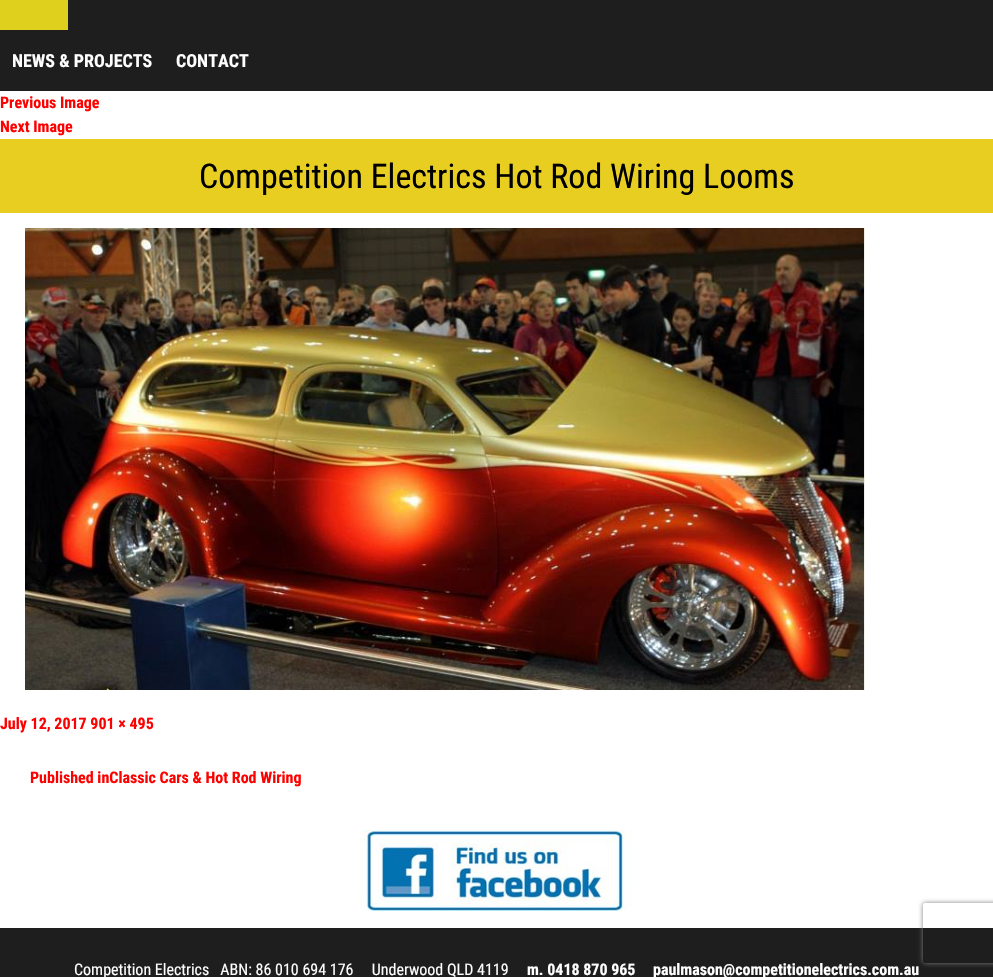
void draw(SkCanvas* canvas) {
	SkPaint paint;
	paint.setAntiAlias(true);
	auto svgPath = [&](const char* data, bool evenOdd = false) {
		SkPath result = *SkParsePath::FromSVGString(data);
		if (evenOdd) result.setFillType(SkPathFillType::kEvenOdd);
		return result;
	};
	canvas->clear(0xff1e1e1e);
	paint.setColor(0xffdfd01d);
	canvas->drawRect(SkRect::MakeXYWH(0, 0, 68, 30), paint);
	SkFont f1(fontMgr->matchFamilyStyle("Roboto Condensed", SkFontStyle::Bold()), 18);
	f1.setSubpixel(true);
	paint.setColor(0xffffffff);
	canvas->drawString("NEWS & PROJECTS", 12, 67, f1, paint);
	canvas->drawString("CONTACT", 176, 67, f1, paint);
	canvas->drawRect(SkRect::MakeXYWH(0, 91, 993, 837), paint);
	SkFont f2(fontMgr->matchFamilyStyle("Roboto Condensed", SkFontStyle::Bold()), 16);
	f2.setSubpixel(true);
	paint.setColor(0xffff0000);
	canvas->drawString("Previous Image", 0, 108, f2, paint);
	canvas->drawString("Next Image", 0, 132, f2, paint);
	paint.setColor(0xffe7ce21);
	canvas->drawRect(SkRect::MakeXYWH(0, 139, 993, 74), paint);
	SkFont f3(fontMgr->matchFamilyStyle("Roboto Condensed", SkFontStyle::Normal()), 34);
	f3.setSubpixel(true);
	paint.setColor(0xff000000);
	canvas->drawString("Competition Electrics Hot Rod Wiring Looms", 199, 188, f3, paint);
	canvas->drawImageRect(SkImages::DeferredFromEncodedData(SkData::MakeFromFileName("img1.png")), SkRect::MakeXYWH(25, 228, 840, 462), SkSamplingOptions());
	paint.setColor(0xffff0000);
	canvas->drawString("July 12, 2017 901 × 495", 0, 729, f2, paint);
	canvas->drawString("Published inClassic Cars & Hot Rod Wiring", 30, 783, f2, paint);
	canvas->drawImageRect(SkImages::DeferredFromEncodedData(SkData::MakeFromFileName("img2.png")), SkRect::MakeXYWH(360, 830, 272, 81), SkSamplingOptions());
	SkFont f4(fontMgr->matchFamilyStyle("Roboto Condensed", SkFontStyle::Normal()), 16);
	f4.setSubpixel(true);
	paint.setColor(0xffffffff);
	canvas->drawString("Competition Electrics   ABN: 86 010 694 176     Underwood QLD 4119", 74, 975, f4, paint);
	canvas->drawString("m. 0418 870 965", 527, 975, f2, paint);
	canvas->drawString("paulmason@competitionelectrics.com.au", 653, 975, f2, paint);
	canvas->save();
	canvas->clipPath(svgPath("M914 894H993V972H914ZM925 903H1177C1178 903 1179 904 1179 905V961C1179 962 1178 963 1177 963H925C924 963 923 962 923 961V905C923 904 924 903 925 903Z", true), true);
	paint.setColor(0xff808080);
	paint.setMaskFilter(SkMaskFilter::MakeBlur(kNormal_SkBlurStyle, 2.5));
	canvas->drawRoundRect(SkRect::MakeXYWH(923, 903, 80, 60), 2, 2, paint);
	paint.setMaskFilter(nullptr);
	canvas->restore();
}
